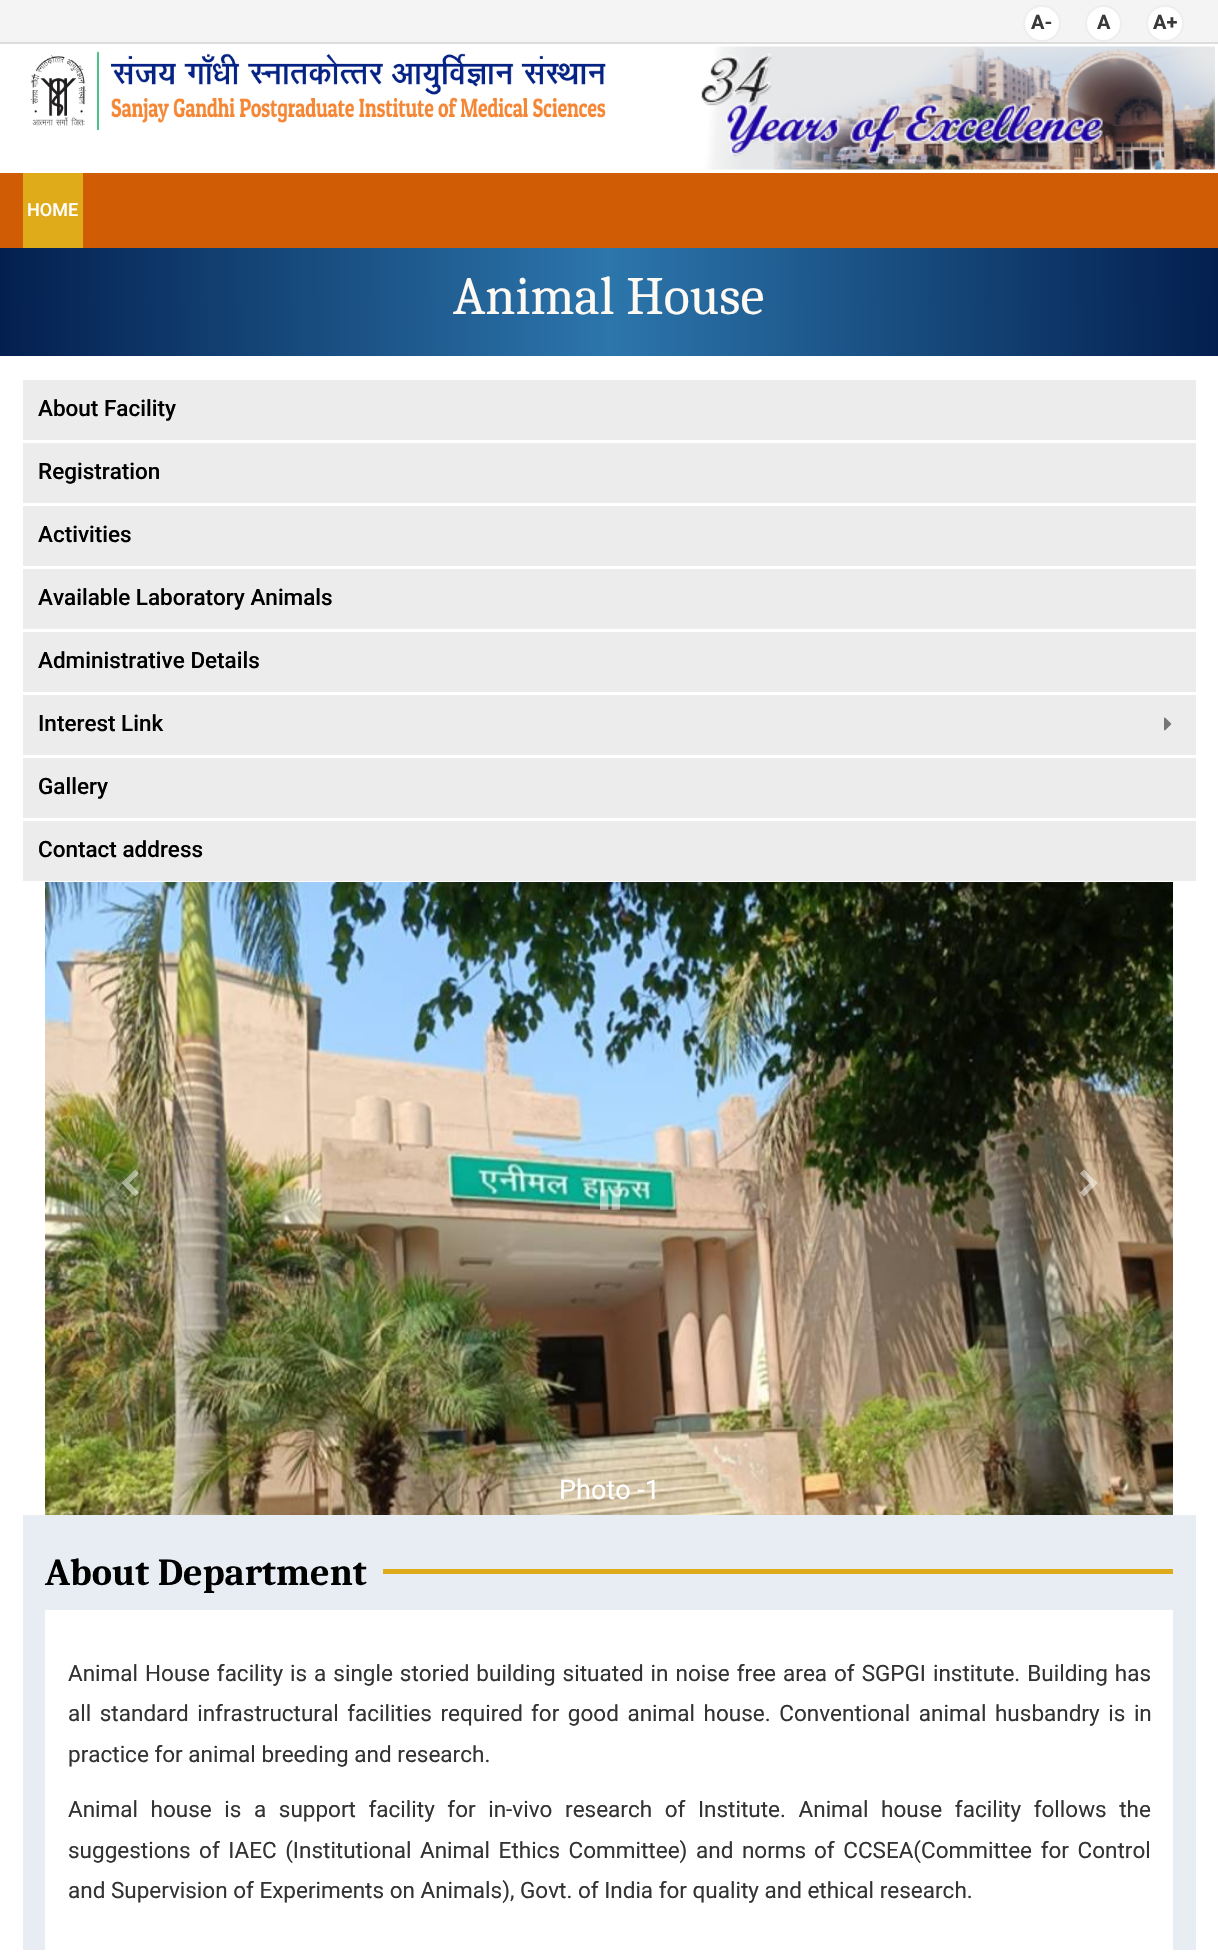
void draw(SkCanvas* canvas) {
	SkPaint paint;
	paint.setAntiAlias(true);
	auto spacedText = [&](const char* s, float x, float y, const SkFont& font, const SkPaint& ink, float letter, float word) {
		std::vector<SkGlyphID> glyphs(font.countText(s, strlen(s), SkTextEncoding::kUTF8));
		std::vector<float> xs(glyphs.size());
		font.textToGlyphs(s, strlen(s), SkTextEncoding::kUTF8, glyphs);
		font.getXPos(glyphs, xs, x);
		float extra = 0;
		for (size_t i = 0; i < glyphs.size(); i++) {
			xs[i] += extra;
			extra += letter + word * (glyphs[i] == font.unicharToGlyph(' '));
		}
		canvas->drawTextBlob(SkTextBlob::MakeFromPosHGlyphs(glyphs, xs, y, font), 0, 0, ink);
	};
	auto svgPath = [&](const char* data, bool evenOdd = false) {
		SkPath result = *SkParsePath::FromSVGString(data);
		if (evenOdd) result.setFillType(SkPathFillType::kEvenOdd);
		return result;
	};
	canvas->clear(0xffffffff);
	paint.setColor(0xfff4f4f4);
	canvas->drawRect(SkRect::MakeXYWH(0, 0, 1218, 42), paint);
	paint.setColor(0xffdddddd);
	canvas->drawRect(SkRect::MakeXYWH(0, 42, 1218, 2), paint);
	paint.setColor(0xffffffff);
	canvas->drawRoundRect(SkRect::MakeXYWH(1024, 6, 36, 35), 17.5, 17.5, paint);
	paint.setStroke(true);
	paint.setStrokeWidth(2);
	paint.setColor(0xffeeeeee);
	canvas->drawRoundRect(SkRect::MakeXYWH(1024, 6, 36, 35), 17.5, 17.5, paint);
	SkFont f1(fontMgr->matchFamilyStyle("Roboto", SkFontStyle::Bold()), 20);
	f1.setSubpixel(true);
	paint.setStroke(false);
	paint.setColor(0xff393939);
	canvas->drawString("A-", 1031, 29, f1, paint);
	paint.setColor(0xffffffff);
	canvas->drawCircle(1103.5, 23.5, 17.5, paint);
	paint.setStroke(true);
	paint.setColor(0xffeeeeee);
	canvas->drawCircle(1103.5, 23.5, 17.5, paint);
	paint.setStroke(false);
	paint.setColor(0xff393939);
	canvas->drawString("A", 1097, 29, f1, paint);
	paint.setColor(0xffffffff);
	canvas->drawRoundRect(SkRect::MakeXYWH(1147, 6, 36, 35), 17.5, 17.5, paint);
	paint.setStroke(true);
	paint.setColor(0xffeeeeee);
	canvas->drawRoundRect(SkRect::MakeXYWH(1147, 6, 36, 35), 17.5, 17.5, paint);
	paint.setStroke(false);
	paint.setColor(0xff393939);
	canvas->drawString("A+", 1153, 29, f1, paint);
	canvas->drawImageRect(SkImages::DeferredFromEncodedData(SkData::MakeFromFileName("img1.png")), SkRect::MakeXYWH(30, 51, 576, 79), SkSamplingOptions());
	canvas->drawImageRect(SkImages::DeferredFromEncodedData(SkData::MakeFromFileName("img2.png")), SkRect::MakeXYWH(701, 46, 514, 124), SkSamplingOptions());
	paint.setColor(0xffd05c05);
	canvas->drawRect(SkRect::MakeXYWH(0, 173, 1218, 75), paint);
	paint.setColor(0xffe0ab1b);
	canvas->drawRect(SkRect::MakeXYWH(23, 173, 60, 75), paint);
	SkFont f2(fontMgr->matchFamilyStyle("Roboto", SkFontStyle(500, SkFontStyle::kNormal_Width, SkFontStyle::kUpright_Slant)), 18);
	f2.setSubpixel(true);
	paint.setColor(0xffffffff);
	canvas->drawString("HOME", 27, 216, f2, paint);
	{
		const SkColor colors[] = {0xff031f4f, 0xff2c76ac, 0xff031f4f};
		const float stops[] = {0, 0.5, 1};
		const SkPoint ends[] = {{0, 302}, {1218, 301}};
		paint.setShader(SkGradientShader::MakeLinear(ends, colors, stops, 3, SkTileMode::kClamp));
		paint.setAlpha(255);
	}
	canvas->drawRect(SkRect::MakeXYWH(0, 248, 1218, 108), paint);
	SkFont f3(fontMgr->matchFamilyStyle("Caladea", SkFontStyle::Normal()), 54);
	f3.setSubpixel(true);
	paint.setShader(nullptr);
	paint.setColor(0xfffff9f4);
	canvas->drawString("Animal House", 453, 314, f3, paint);
	paint.setColor(0xffececec);
	canvas->drawRect(SkRect::MakeXYWH(23, 380, 1173, 60), paint);
	SkFont f4(fontMgr->matchFamilyStyle("Roboto", SkFontStyle(500, SkFontStyle::kNormal_Width, SkFontStyle::kUpright_Slant)), 22.5);
	f4.setSubpixel(true);
	paint.setColor(0xff000000);
	canvas->drawString("About Facility", 38, 416, f4, paint);
	paint.setColor(0xffececec);
	canvas->drawRect(SkRect::MakeXYWH(23, 443, 1173, 60), paint);
	paint.setColor(0xff000000);
	canvas->drawString("Registration", 38, 479, f4, paint);
	paint.setColor(0xffececec);
	canvas->drawRect(SkRect::MakeXYWH(23, 506, 1173, 60), paint);
	paint.setColor(0xff000000);
	canvas->drawString("Activities", 38, 542, f4, paint);
	paint.setColor(0xffececec);
	canvas->drawRect(SkRect::MakeXYWH(23, 569, 1173, 60), paint);
	paint.setColor(0xff000000);
	canvas->drawString("Available Laboratory Animals", 38, 605, f4, paint);
	paint.setColor(0xffececec);
	canvas->drawRect(SkRect::MakeXYWH(23, 632, 1173, 60), paint);
	paint.setColor(0xff000000);
	canvas->drawString("Administrative Details", 38, 668, f4, paint);
	paint.setColor(0xffececec);
	canvas->drawRect(SkRect::MakeXYWH(23, 695, 1173, 60), paint);
	paint.setColor(0xff000000);
	canvas->drawString("Interest Link", 38, 731, f4, paint);
	canvas->drawImageRect(SkImages::DeferredFromEncodedData(SkData::MakeFromFileName("img3.png")), SkRect::MakeXYWH(1164, 717, 8, 14), SkSamplingOptions());
	paint.setColor(0xffececec);
	canvas->drawRect(SkRect::MakeXYWH(23, 758, 1173, 60), paint);
	paint.setColor(0xff000000);
	canvas->drawString("Gallery", 38, 794, f4, paint);
	paint.setColor(0xffececec);
	canvas->drawRect(SkRect::MakeXYWH(23, 821, 1173, 60), paint);
	paint.setColor(0xff000000);
	canvas->drawString("Contact address", 38, 857, f4, paint);
	canvas->drawImageRect(SkImages::DeferredFromEncodedData(SkData::MakeFromFileName("img4.png")), SkRect::MakeXYWH(45, 882, 1128, 633), SkSamplingOptions());
	paint.setColor(0x80ffffff);
	canvas->drawPath(svgPath("M121.5 1183L135 1169.5L139 1173.5L129.5 1183L139 1192.5L135 1196.5Z"), paint);
	canvas->drawPath(svgPath("M1080 1192.5L1089.5 1183L1080 1173.5L1084 1169.5L1097.5 1183L1084 1196.5Z"), paint);
	canvas->drawImageRect(SkImages::DeferredFromEncodedData(SkData::MakeFromFileName("img5.png")), SkRect::MakeXYWH(600, 1189, 21, 21), SkSamplingOptions());
	SkFont f5(fontMgr->matchFamilyStyle("Roboto", SkFontStyle::Normal()), 27);
	f5.setSubpixel(true);
	paint.setColor(0xffffffff);
	canvas->drawString("Photo -1", 559, 1499, f5, paint);
	paint.setColor(0xffe7edf2);
	canvas->drawRect(SkRect::MakeXYWH(23, 1515, 1173, 435), paint);
	SkFont f6(fontMgr->matchFamilyStyle("Caladea", SkFontStyle::Bold()), 38.25);
	f6.setSubpixel(true);
	paint.setColor(0xff000000);
	canvas->drawString("About Department", 45, 1585, f6, paint);
	paint.setColor(0xffe0ab1b);
	canvas->drawRect(SkRect::MakeXYWH(383, 1569, 790, 5), paint);
	paint.setColor(0xffffffff);
	canvas->drawRect(SkRect::MakeXYWH(45, 1610, 1128, 340), paint);
	SkFont f7(fontMgr->matchFamilyStyle("Roboto", SkFontStyle::Normal()), 22.5);
	f7.setSubpixel(true);
	paint.setColor(0xff333333);
	spacedText("Animal House facility is a single storied building situated in noise free area of SGPGI institute. Building has", 68, 1681, f7, paint, 0, 1.4);
	spacedText("all standard infrastructural facilities required", 68, 1721, f7, paint, 0, 3);
	spacedText("for good animal house. Conventional animal husbandry is in", 531, 1721, f7, paint, 0, 3);
	canvas->drawString("practice for animal breeding and research.", 68, 1762, f7, paint);
	spacedText("Animal house is a support facility for in-vivo research of Institute. Animal house facility follows the", 68, 1817, f7, paint, 0, 7);
	spacedText("suggestions of IAEC (Institutional Animal Ethics Committee) and norms", 68, 1858, f7, paint, 0, 3);
	spacedText("of CCSEA(Committee for Control", 814, 1858, f7, paint, 0, 3);
	canvas->drawString("and Supervision of Experiments on Animals), Govt. of India for quality and ethical research.", 68, 1898, f7, paint);
}
